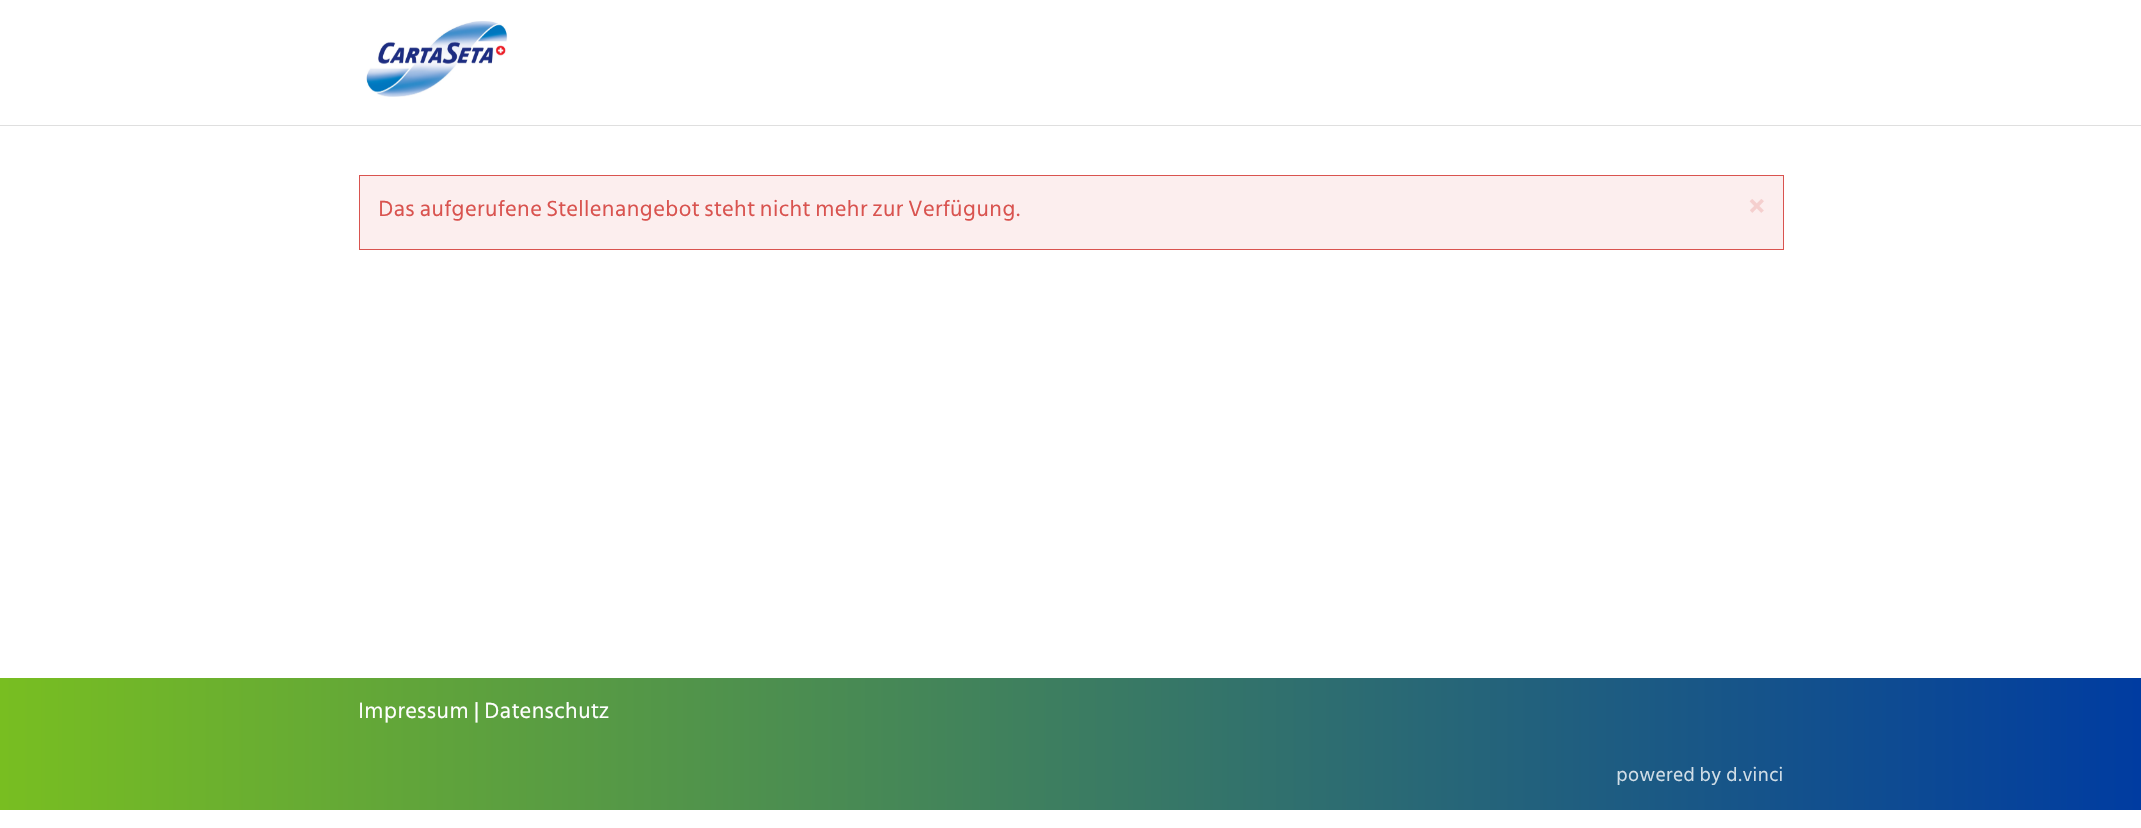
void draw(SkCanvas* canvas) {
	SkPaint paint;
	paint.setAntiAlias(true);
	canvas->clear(0xffffffff);
	paint.setColor(0xffdfdfdf);
	canvas->drawRect(SkRect::MakeXYWH(0, 125, 2141, 1), paint);
	canvas->drawImageRect(SkImages::DeferredFromEncodedData(SkData::MakeFromFileName("img1.png")), SkRect::MakeXYWH(366, 21, 142, 76), SkSamplingOptions());
	paint.setColor(0xfffceeee);
	canvas->drawRect(SkRect::MakeXYWH(359.5, 175.5, 1424, 74), paint);
	paint.setStroke(true);
	paint.setStrokeWidth(1);
	paint.setColor(0xffd9534f);
	canvas->drawRect(SkRect::MakeXYWH(359.5, 175.5, 1424, 74), paint);
	SkFont f1(fontMgr->matchFamilyStyle("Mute", SkFontStyle::Normal()), 22.5);
	f1.setSubpixel(true);
	paint.setStroke(false);
	canvas->drawString("Das aufgerufene Stellenangebot steht nicht mehr zur Verfügung.", 378, 216, f1, paint);
	SkFont f2(fontMgr->matchFamilyStyle("Mute", SkFontStyle::Bold()), 34);
	f2.setSubpixel(true);
	paint.setColor(0xfff5cfce);
	canvas->drawString("×", 1748, 218, f2, paint);
	{
		const SkColor colors[] = {0xff78be21, 0xff003ca1};
		const float stops[] = {0, 1};
		const SkPoint ends[] = {{0, 744}, {2141, 744}};
		paint.setShader(SkGradientShader::MakeLinear(ends, colors, stops, 2, SkTileMode::kClamp));
		paint.setAlpha(255);
	}
	canvas->drawRect(SkRect::MakeXYWH(0, 678, 2141, 132), paint);
	paint.setShader(nullptr);
	paint.setColor(0xffffffff);
	canvas->drawString("Impressum | Datenschutz", 358, 718, f1, paint);
	SkFont f3(fontMgr->matchFamilyStyle("Mute", SkFontStyle::Normal()), 19.75);
	f3.setSubpixel(true);
	paint.setColor(0xffd1dee7);
	canvas->drawString("powered by", 1616, 781, f3, paint);
	canvas->drawString("d.vinci", 1726, 781, f3, paint);
}
